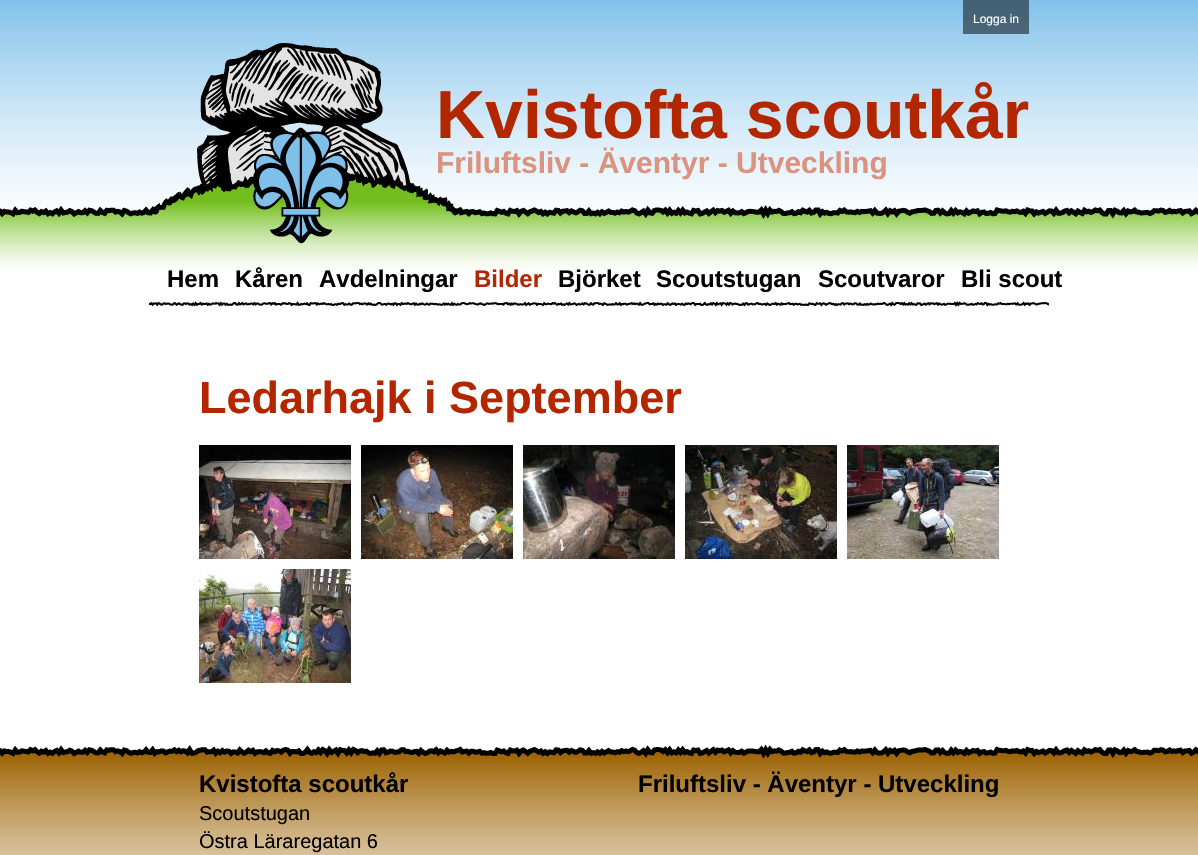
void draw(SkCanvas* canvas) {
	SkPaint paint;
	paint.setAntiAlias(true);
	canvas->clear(0xffffffff);
	canvas->drawImageRect(SkImages::DeferredFromEncodedData(SkData::MakeFromFileName("img1.png")), SkRect::MakeXYWH(0, 0, 1198, 212), SkSamplingOptions());
	canvas->drawImageRect(SkImages::DeferredFromEncodedData(SkData::MakeFromFileName("img2.png")), SkRect::MakeXYWH(0, 205, 1198, 65), SkSamplingOptions());
	paint.setColor(0x80000000);
	canvas->drawRect(SkRect::MakeXYWH(963, 0, 66, 34), paint);
	SkFont f1(fontMgr->matchFamilyStyle("Liberation Sans", SkFontStyle::Normal()), 12);
	f1.setSubpixel(true);
	paint.setColor(0xffffffff);
	canvas->drawString("Logga in", 973, 23, f1, paint);
	canvas->drawImageRect(SkImages::DeferredFromEncodedData(SkData::MakeFromFileName("img3.png")), SkRect::MakeXYWH(149, 43, 313, 201), SkSamplingOptions());
	SkFont f2(fontMgr->matchFamilyStyle("Liberation Sans", SkFontStyle::Bold()), 68);
	f2.setSubpixel(true);
	paint.setColor(0xffb32700);
	canvas->drawString("Kvistofta scoutkår", 436, 138, f2, paint);
	SkFont f3(fontMgr->matchFamilyStyle("Liberation Sans", SkFontStyle::Bold()), 30);
	f3.setSubpixel(true);
	paint.setColor(0xffd9937f);
	canvas->drawString("Friluftsliv - Äventyr - Utveckling", 436, 173, f3, paint);
	SkFont f4(fontMgr->matchFamilyStyle("Liberation Sans", SkFontStyle::Bold()), 24);
	f4.setSubpixel(true);
	paint.setColor(0xff000000);
	canvas->drawString("Hem", 167, 287, f4, paint);
	canvas->drawString("Kåren", 235, 287, f4, paint);
	canvas->drawString("Avdelningar", 319, 287, f4, paint);
	paint.setColor(0xffb32700);
	canvas->drawString("Bilder", 474, 287, f4, paint);
	paint.setColor(0xff000000);
	canvas->drawString("Björket", 558, 287, f4, paint);
	canvas->drawString("Scoutstugan", 656, 287, f4, paint);
	canvas->drawString("Scoutvaror", 818, 287, f4, paint);
	canvas->drawString("Bli scout", 961, 287, f4, paint);
	canvas->drawImageRect(SkImages::DeferredFromEncodedData(SkData::MakeFromFileName("img4.png")), SkRect::MakeXYWH(149, 301, 900, 6), SkSamplingOptions());
	SkFont f5(fontMgr->matchFamilyStyle("Liberation Sans", SkFontStyle::Bold()), 45);
	f5.setSubpixel(true);
	paint.setColor(0xffb32700);
	canvas->drawString("Ledarhajk i September", 199, 413, f5, paint);
	canvas->drawImageRect(SkImages::DeferredFromEncodedData(SkData::MakeFromFileName("img5.png")), SkRect::MakeXYWH(199, 445, 152, 114), SkSamplingOptions());
	canvas->drawImageRect(SkImages::DeferredFromEncodedData(SkData::MakeFromFileName("img6.png")), SkRect::MakeXYWH(361, 445, 152, 114), SkSamplingOptions());
	canvas->drawImageRect(SkImages::DeferredFromEncodedData(SkData::MakeFromFileName("img7.png")), SkRect::MakeXYWH(523, 445, 152, 114), SkSamplingOptions());
	canvas->drawImageRect(SkImages::DeferredFromEncodedData(SkData::MakeFromFileName("img8.png")), SkRect::MakeXYWH(685, 445, 152, 114), SkSamplingOptions());
	canvas->drawImageRect(SkImages::DeferredFromEncodedData(SkData::MakeFromFileName("img9.png")), SkRect::MakeXYWH(847, 445, 152, 114), SkSamplingOptions());
	canvas->drawImageRect(SkImages::DeferredFromEncodedData(SkData::MakeFromFileName("img10.png")), SkRect::MakeXYWH(199, 569, 152, 114), SkSamplingOptions());
	paint.setColor(0xffeadfcb);
	canvas->drawRect(SkRect::MakeXYWH(0, 752, 1198, 103), paint);
	canvas->drawImageRect(SkImages::DeferredFromEncodedData(SkData::MakeFromFileName("img11.png")), SkRect::MakeXYWH(0, 740, 1198, 115), SkSamplingOptions());
	paint.setColor(0xff000000);
	canvas->drawString("Kvistofta scoutkår", 199, 792, f4, paint);
	SkFont f6(fontMgr->matchFamilyStyle("Liberation Sans", SkFontStyle::Normal()), 20);
	f6.setSubpixel(true);
	canvas->drawString("Scoutstugan", 199, 820, f6, paint);
	canvas->drawString("Östra Läraregatan 6", 199, 848, f6, paint);
	canvas->drawString("Friluftsliv - Äventyr - Utveckling", 638, 792, f4, paint);
}
